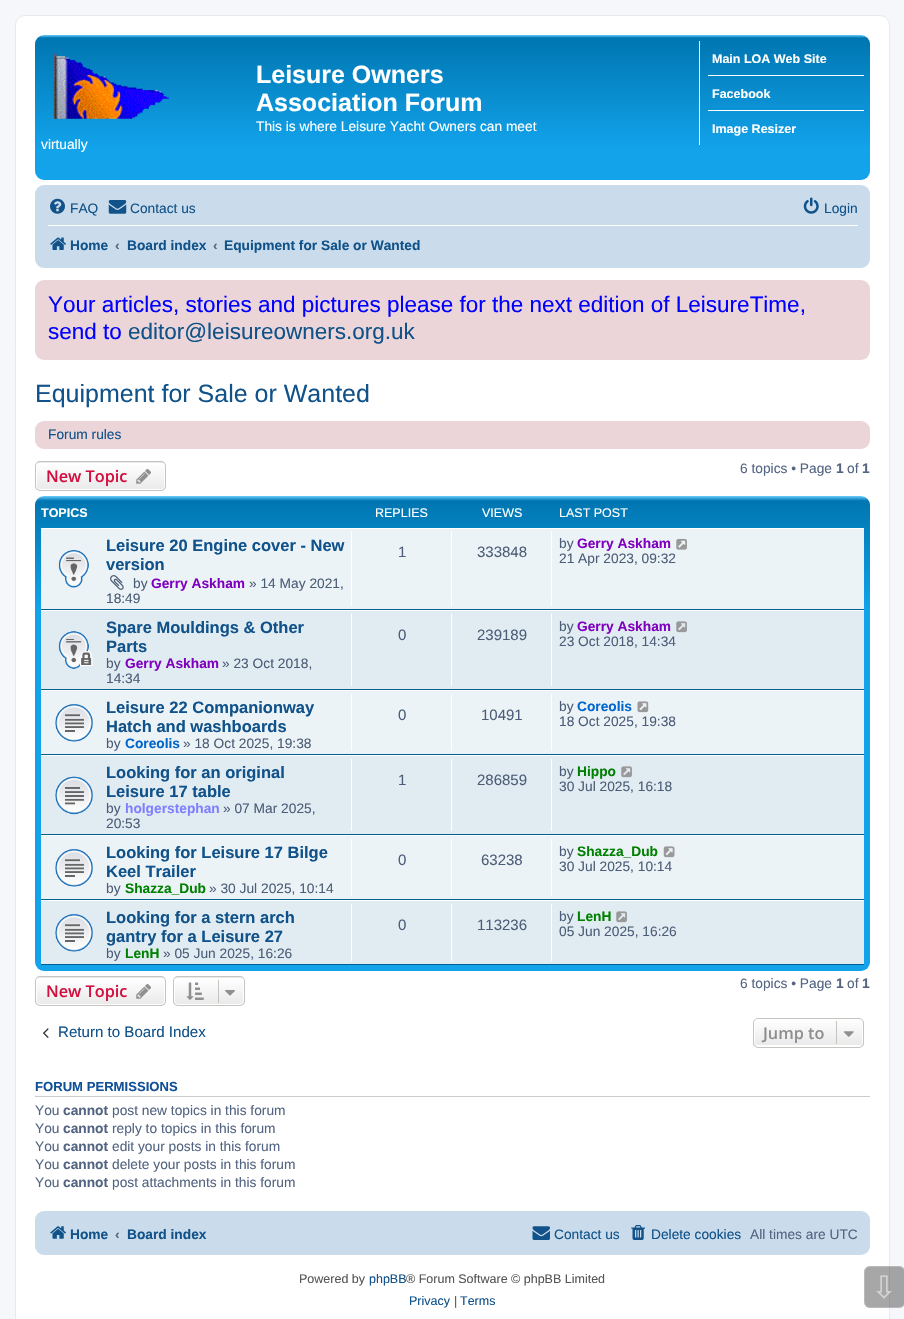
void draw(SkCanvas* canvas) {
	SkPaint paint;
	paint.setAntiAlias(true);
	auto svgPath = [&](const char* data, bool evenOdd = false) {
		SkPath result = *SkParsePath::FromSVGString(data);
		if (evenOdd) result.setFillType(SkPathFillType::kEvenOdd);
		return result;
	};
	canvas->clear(0xfff5f7fa);
	paint.setColor(0xffffffff);
	canvas->drawRoundRect(SkRect::MakeXYWH(15.5, 15.5, 874, 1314), 9.5, 9.5, paint);
	paint.setStroke(true);
	paint.setStrokeWidth(1);
	paint.setColor(0xffe6e9ed);
	canvas->drawRoundRect(SkRect::MakeXYWH(15.5, 15.5, 874, 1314), 9.5, 9.5, paint);
	paint.setStroke(false);
	{
		const SkColor colors[] = {0xff6aceff, 0xff0076b1, 0xff12a3eb, 0xff12a3eb};
		const float stops[] = {0, 0.02, 0.79, 1};
		const SkPoint ends[] = {{453, 35}, {453, 180}};
		paint.setShader(SkGradientShader::MakeLinear(ends, colors, stops, 4, SkTileMode::kClamp));
		paint.setAlpha(255);
	}
	canvas->drawRoundRect(SkRect::MakeXYWH(35, 35, 835, 145), 9, 9, paint);
	canvas->drawImageRect(SkImages::DeferredFromEncodedData(SkData::MakeFromFileName("img1.png")), SkRect::MakeXYWH(53, 53, 116, 66), SkSamplingOptions());
	SkFont f1(fontMgr->matchFamilyStyle("Liberation Sans", SkFontStyle::Bold()), 25);
	f1.setSubpixel(true);
	paint.setShader(nullptr);
	paint.setColor(0xffffffff);
	canvas->drawString("Leisure Owners", 256, 83, f1, paint);
	canvas->drawString("Association Forum", 256, 111, f1, paint);
	SkFont f2(fontMgr->matchFamilyStyle("Liberation Sans", SkFontStyle::Normal()), 13.75);
	f2.setSubpixel(true);
	canvas->drawString("This is where Leisure Yacht Owners can meet", 256, 131, f2, paint);
	canvas->drawString("virtually", 41, 149, f2, paint);
	canvas->drawRect(SkRect::MakeXYWH(699, 41, 1, 104), paint);
	canvas->drawRect(SkRect::MakeXYWH(708, 75, 156, 1), paint);
	SkFont f3(fontMgr->matchFamilyStyle("Liberation Sans", SkFontStyle::Bold()), 12.5);
	f3.setSubpixel(true);
	canvas->drawString("Main LOA Web Site", 712, 63, f3, paint);
	canvas->drawRect(SkRect::MakeXYWH(708, 110, 156, 1), paint);
	canvas->drawString("Facebook", 712, 98, f3, paint);
	canvas->drawString("Image Resizer", 712, 133, f3, paint);
	paint.setColor(0xffcadceb);
	canvas->drawRoundRect(SkRect::MakeXYWH(35, 185, 835, 83), 9, 9, paint);
	canvas->drawImageRect(SkImages::DeferredFromEncodedData(SkData::MakeFromFileName("img2.png")), SkRect::MakeXYWH(50, 198, 15, 16), SkSamplingOptions());
	paint.setColor(0xff105289);
	canvas->drawString("FAQ", 70, 213, f2, paint);
	canvas->drawImageRect(SkImages::DeferredFromEncodedData(SkData::MakeFromFileName("img3.png")), SkRect::MakeXYWH(108, 200, 19, 14), SkSamplingOptions());
	canvas->drawString("Contact us", 130, 213, f2, paint);
	canvas->drawImageRect(SkImages::DeferredFromEncodedData(SkData::MakeFromFileName("img4.png")), SkRect::MakeXYWH(803, 197, 16, 17), SkSamplingOptions());
	canvas->drawString("Login", 824, 213, f2, paint);
	paint.setColor(0xffffffff);
	canvas->drawRect(SkRect::MakeXYWH(48, 225, 810, 1), paint);
	canvas->drawImageRect(SkImages::DeferredFromEncodedData(SkData::MakeFromFileName("img5.png")), SkRect::MakeXYWH(50, 237, 16, 13), SkSamplingOptions());
	SkFont f4(fontMgr->matchFamilyStyle("Liberation Sans", SkFontStyle::Bold()), 13.75);
	f4.setSubpixel(true);
	paint.setColor(0xff105289);
	canvas->drawString("Home", 70, 250, f4, paint);
	paint.setColor(0xff536482);
	canvas->drawString("‹", 115, 250, f4, paint);
	paint.setColor(0xff105289);
	canvas->drawString("Board index", 127, 250, f4, paint);
	paint.setColor(0xff536482);
	canvas->drawString("‹", 213, 250, f4, paint);
	paint.setColor(0xff105289);
	canvas->drawString("Equipment for Sale or Wanted", 224, 250, f4, paint);
	paint.setColor(0xffecd5d8);
	canvas->drawRoundRect(SkRect::MakeXYWH(35, 280, 835, 80), 9, 9, paint);
	SkFont f5(fontMgr->matchFamilyStyle("Liberation Sans", SkFontStyle::Normal()), 22.5);
	f5.setSubpixel(true);
	paint.setColor(0xff0000ff);
	canvas->drawString("Your articles, stories and pictures please for the next edition of LeisureTime,", 48, 312, f5, paint);
	canvas->drawString("send to", 48, 339, f5, paint);
	paint.setColor(0xff105289);
	canvas->drawString("editor@leisureowners.org.uk", 128, 339, f5, paint);
	SkFont f6(fontMgr->matchFamilyStyle("Liberation Sans", SkFontStyle::Normal()), 25);
	f6.setSubpixel(true);
	canvas->drawString("Equipment for Sale or Wanted", 35, 402, f6, paint);
	paint.setColor(0xffecd5d8);
	canvas->drawRoundRect(SkRect::MakeXYWH(35, 421, 835, 28), 9, 9, paint);
	paint.setColor(0xff105289);
	canvas->drawString("Forum rules", 48, 439, f2, paint);
	canvas->save();
	canvas->clipPath(svgPath("M40 461H161C164 461 166 463 166 466V486C166 489 164 491 161 491H40C37 491 35 489 35 486V466C35 463 37 461 40 461Z"), true);
	{
		const SkColor colors[] = {0xffffffff, 0xffe9e9e9};
		const float stops[] = {0, 1};
		const SkPoint ends[] = {{101, 435}, {101, 463}};
		paint.setShader(SkGradientShader::MakeLinear(ends, colors, stops, 2, SkTileMode::kClamp));
		paint.setAlpha(255);
	}
	canvas->drawRect(SkRect::MakeXYWH(35, 461, 131, 2), paint);
	{
		const SkColor colors[] = {0xffffffff, 0xffe9e9e9};
		const float stops[] = {0, 1};
		const SkPoint ends[] = {{101, 463}, {101, 490}};
		paint.setShader(SkGradientShader::MakeLinear(ends, colors, stops, 2, SkTileMode::kClamp));
		paint.setAlpha(255);
	}
	canvas->drawRect(SkRect::MakeXYWH(35, 463, 131, 27), paint);
	canvas->restore();
	paint.setStroke(true);
	paint.setShader(nullptr);
	paint.setColor(0xffffffff);
	canvas->drawRoundRect(SkRect::MakeXYWH(36.5, 463.5, 128, 26), 3.5, 3.5, paint);
	paint.setColor(0xffc7c3bf);
	canvas->drawRoundRect(SkRect::MakeXYWH(35.5, 461.5, 130, 29), 4.5, 4.5, paint);
	SkFont f7(fontMgr->matchFamilyStyle("Open Sans", SkFontStyle(600, SkFontStyle::kNormal_Width, SkFontStyle::kUpright_Slant)), 16.25);
	f7.setSubpixel(true);
	paint.setStroke(false);
	paint.setColor(0xffd31141);
	canvas->drawString("New Topic", 46, 482, f7, paint);
	canvas->drawImageRect(SkImages::DeferredFromEncodedData(SkData::MakeFromFileName("img6.png")), SkRect::MakeXYWH(136, 469, 15, 15), SkSamplingOptions());
	paint.setColor(0xff536482);
	canvas->drawString("6 topics • Page", 740, 473, f2, paint);
	canvas->drawString("1", 836, 473, f4, paint);
	canvas->drawString("of", 847, 473, f2, paint);
	canvas->drawString("1", 862, 473, f4, paint);
	{
		const SkColor colors[] = {0xff6aceff, 0xff0076b1, 0xff12a3eb, 0xff12a3eb};
		const float stops[] = {0, 0.01, 0.24, 1};
		const SkPoint ends[] = {{453, 496}, {453, 971}};
		paint.setShader(SkGradientShader::MakeLinear(ends, colors, stops, 4, SkTileMode::kClamp));
		paint.setAlpha(255);
	}
	canvas->drawRoundRect(SkRect::MakeXYWH(35, 496, 835, 475), 9, 9, paint);
	paint.setShader(nullptr);
	paint.setColor(0xffffffff);
	canvas->drawString("TOPICS", 41, 517, f3, paint);
	SkFont f8(fontMgr->matchFamilyStyle("Liberation Sans", SkFontStyle::Normal()), 12.5);
	f8.setSubpixel(true);
	canvas->drawString("REPLIES", 375, 517, f8, paint);
	canvas->drawString("VIEWS", 482, 517, f8, paint);
	canvas->drawString("LAST POST", 559, 517, f8, paint);
	paint.setColor(0xffecf3f7);
	canvas->drawRect(SkRect::MakeXYWH(41, 529, 823, 80), paint);
	paint.setColor(0xffffffff);
	canvas->drawRect(SkRect::MakeXYWH(41, 528, 823, 1), paint);
	paint.setColor(0xff00608f);
	canvas->drawRect(SkRect::MakeXYWH(41, 609, 823, 1), paint);
	canvas->drawImageRect(SkImages::DeferredFromEncodedData(SkData::MakeFromFileName("img7.png")), SkRect::MakeXYWH(58, 550, 31, 38), SkSamplingOptions());
	SkFont f9(fontMgr->matchFamilyStyle("Liberation Sans", SkFontStyle::Bold()), 16.5);
	f9.setSubpixel(true);
	paint.setColor(0xff105289);
	canvas->drawString("Leisure 20 Engine cover - New", 106, 551, f9, paint);
	canvas->drawString("version", 106, 570, f9, paint);
	canvas->drawImageRect(SkImages::DeferredFromEncodedData(SkData::MakeFromFileName("img8.png")), SkRect::MakeXYWH(110, 575, 14, 15), SkSamplingOptions());
	paint.setColor(0xff4c5d77);
	canvas->drawString("by", 133, 588, f2, paint);
	paint.setColor(0xff8000bf);
	canvas->drawString("Gerry Askham", 151, 588, f4, paint);
	paint.setColor(0xff4c5d77);
	canvas->drawString("» 14 May 2021,", 249, 588, f2, paint);
	canvas->drawString("18:49", 106, 603, f2, paint);
	paint.setColor(0xffffffff);
	canvas->drawRect(SkRect::MakeXYWH(351, 531, 1, 75), paint);
	SkFont f10(fontMgr->matchFamilyStyle("Liberation Sans", SkFontStyle::Normal()), 15);
	f10.setSubpixel(true);
	paint.setColor(0xff4c5d77);
	canvas->drawString("1", 398, 557, f10, paint);
	paint.setColor(0xffffffff);
	canvas->drawRect(SkRect::MakeXYWH(451, 531, 1, 75), paint);
	paint.setColor(0xff4c5d77);
	canvas->drawString("333848", 477, 557, f10, paint);
	paint.setColor(0xffffffff);
	canvas->drawRect(SkRect::MakeXYWH(551, 531, 1, 75), paint);
	paint.setColor(0xff4c5d77);
	canvas->drawString("by", 559, 548, f2, paint);
	paint.setColor(0xff8000bf);
	canvas->drawString("Gerry Askham", 577, 548, f4, paint);
	canvas->drawImageRect(SkImages::DeferredFromEncodedData(SkData::MakeFromFileName("img9.png")), SkRect::MakeXYWH(676, 538, 11, 12), SkSamplingOptions());
	paint.setColor(0xff4c5d77);
	canvas->drawString("21 Apr 2023, 09:32", 559, 563, f2, paint);
	paint.setColor(0xffe1ebf2);
	canvas->drawRect(SkRect::MakeXYWH(41, 611, 823, 78), paint);
	paint.setColor(0xffffffff);
	canvas->drawRect(SkRect::MakeXYWH(41, 610, 823, 1), paint);
	paint.setColor(0xff00608f);
	canvas->drawRect(SkRect::MakeXYWH(41, 689, 823, 1), paint);
	canvas->drawImageRect(SkImages::DeferredFromEncodedData(SkData::MakeFromFileName("img10.png")), SkRect::MakeXYWH(58, 631, 35, 38), SkSamplingOptions());
	paint.setColor(0xff105289);
	canvas->drawString("Spare Mouldings & Other", 106, 633, f9, paint);
	canvas->drawString("Parts", 106, 652, f9, paint);
	paint.setColor(0xff4c5d77);
	canvas->drawString("by", 106, 668, f2, paint);
	paint.setColor(0xff8000bf);
	canvas->drawString("Gerry Askham", 125, 668, f4, paint);
	paint.setColor(0xff4c5d77);
	canvas->drawString("» 23 Oct 2018,", 222, 668, f2, paint);
	canvas->drawString("14:34", 106, 683, f2, paint);
	paint.setColor(0xffffffff);
	canvas->drawRect(SkRect::MakeXYWH(351, 614, 1, 72), paint);
	paint.setColor(0xff4c5d77);
	canvas->drawString("0", 398, 640, f10, paint);
	paint.setColor(0xffffffff);
	canvas->drawRect(SkRect::MakeXYWH(451, 614, 1, 72), paint);
	paint.setColor(0xff4c5d77);
	canvas->drawString("239189", 477, 640, f10, paint);
	paint.setColor(0xffffffff);
	canvas->drawRect(SkRect::MakeXYWH(551, 614, 1, 72), paint);
	paint.setColor(0xff4c5d77);
	canvas->drawString("by", 559, 631, f2, paint);
	paint.setColor(0xff8000bf);
	canvas->drawString("Gerry Askham", 577, 631, f4, paint);
	canvas->drawImageRect(SkImages::DeferredFromEncodedData(SkData::MakeFromFileName("img11.png")), SkRect::MakeXYWH(676, 621, 11, 12), SkSamplingOptions());
	paint.setColor(0xff4c5d77);
	canvas->drawString("23 Oct 2018, 14:34", 559, 646, f2, paint);
	paint.setColor(0xffecf3f7);
	canvas->drawRect(SkRect::MakeXYWH(41, 691, 823, 63), paint);
	paint.setColor(0xffffffff);
	canvas->drawRect(SkRect::MakeXYWH(41, 690, 823, 1), paint);
	paint.setColor(0xff00608f);
	canvas->drawRect(SkRect::MakeXYWH(41, 754, 823, 1), paint);
	canvas->drawImageRect(SkImages::DeferredFromEncodedData(SkData::MakeFromFileName("img12.png")), SkRect::MakeXYWH(55, 703, 38, 39), SkSamplingOptions());
	paint.setColor(0xff105289);
	canvas->drawString("Leisure 22 Companionway", 106, 713, f9, paint);
	canvas->drawString("Hatch and washboards", 106, 732, f9, paint);
	paint.setColor(0xff4c5d77);
	canvas->drawString("by", 106, 748, f2, paint);
	paint.setColor(0xff0066cc);
	canvas->drawString("Coreolis", 125, 748, f4, paint);
	paint.setColor(0xff4c5d77);
	canvas->drawString("» 18 Oct 2025, 19:38", 183, 748, f2, paint);
	paint.setColor(0xffffffff);
	canvas->drawRect(SkRect::MakeXYWH(351, 694, 1, 57), paint);
	paint.setColor(0xff4c5d77);
	canvas->drawString("0", 398, 720, f10, paint);
	paint.setColor(0xffffffff);
	canvas->drawRect(SkRect::MakeXYWH(451, 694, 1, 57), paint);
	paint.setColor(0xff4c5d77);
	canvas->drawString("10491", 481, 720, f10, paint);
	paint.setColor(0xffffffff);
	canvas->drawRect(SkRect::MakeXYWH(551, 694, 1, 57), paint);
	paint.setColor(0xff4c5d77);
	canvas->drawString("by", 559, 711, f2, paint);
	paint.setColor(0xff0066cc);
	canvas->drawString("Coreolis", 577, 711, f4, paint);
	canvas->drawImageRect(SkImages::DeferredFromEncodedData(SkData::MakeFromFileName("img13.png")), SkRect::MakeXYWH(637, 701, 12, 12), SkSamplingOptions());
	paint.setColor(0xff4c5d77);
	canvas->drawString("18 Oct 2025, 19:38", 559, 726, f2, paint);
	paint.setColor(0xffe1ebf2);
	canvas->drawRect(SkRect::MakeXYWH(41, 756, 823, 78), paint);
	paint.setColor(0xffffffff);
	canvas->drawRect(SkRect::MakeXYWH(41, 755, 823, 1), paint);
	paint.setColor(0xff00608f);
	canvas->drawRect(SkRect::MakeXYWH(41, 834, 823, 1), paint);
	canvas->drawImageRect(SkImages::DeferredFromEncodedData(SkData::MakeFromFileName("img14.png")), SkRect::MakeXYWH(55, 776, 38, 39), SkSamplingOptions());
	paint.setColor(0xff105289);
	canvas->drawString("Looking for an original", 106, 778, f9, paint);
	canvas->drawString("Leisure 17 table", 106, 797, f9, paint);
	paint.setColor(0xff4c5d77);
	canvas->drawString("by", 106, 813, f2, paint);
	paint.setColor(0xff8080ff);
	canvas->drawString("holgerstephan", 125, 813, f4, paint);
	paint.setColor(0xff4c5d77);
	canvas->drawString("» 07 Mar 2025,", 223, 813, f2, paint);
	canvas->drawString("20:53", 106, 828, f2, paint);
	paint.setColor(0xffffffff);
	canvas->drawRect(SkRect::MakeXYWH(351, 759, 1, 72), paint);
	paint.setColor(0xff4c5d77);
	canvas->drawString("1", 398, 785, f10, paint);
	paint.setColor(0xffffffff);
	canvas->drawRect(SkRect::MakeXYWH(451, 759, 1, 72), paint);
	paint.setColor(0xff4c5d77);
	canvas->drawString("286859", 477, 785, f10, paint);
	paint.setColor(0xffffffff);
	canvas->drawRect(SkRect::MakeXYWH(551, 759, 1, 72), paint);
	paint.setColor(0xff4c5d77);
	canvas->drawString("by", 559, 776, f2, paint);
	paint.setColor(0xff008000);
	canvas->drawString("Hippo", 577, 776, f4, paint);
	canvas->drawImageRect(SkImages::DeferredFromEncodedData(SkData::MakeFromFileName("img11.png")), SkRect::MakeXYWH(621, 766, 11, 12), SkSamplingOptions());
	paint.setColor(0xff4c5d77);
	canvas->drawString("30 Jul 2025, 16:18", 559, 791, f2, paint);
	paint.setColor(0xffecf3f7);
	canvas->drawRect(SkRect::MakeXYWH(41, 836, 823, 63), paint);
	paint.setColor(0xffffffff);
	canvas->drawRect(SkRect::MakeXYWH(41, 835, 823, 1), paint);
	paint.setColor(0xff00608f);
	canvas->drawRect(SkRect::MakeXYWH(41, 899, 823, 1), paint);
	canvas->drawImageRect(SkImages::DeferredFromEncodedData(SkData::MakeFromFileName("img12.png")), SkRect::MakeXYWH(55, 848, 38, 39), SkSamplingOptions());
	paint.setColor(0xff105289);
	canvas->drawString("Looking for Leisure 17 Bilge", 106, 858, f9, paint);
	canvas->drawString("Keel Trailer", 106, 877, f9, paint);
	paint.setColor(0xff4c5d77);
	canvas->drawString("by", 106, 893, f2, paint);
	paint.setColor(0xff008000);
	canvas->drawString("Shazza_Dub", 125, 893, f4, paint);
	paint.setColor(0xff4c5d77);
	canvas->drawString("» 30 Jul 2025, 10:14", 209, 893, f2, paint);
	paint.setColor(0xffffffff);
	canvas->drawRect(SkRect::MakeXYWH(351, 839, 1, 57), paint);
	paint.setColor(0xff4c5d77);
	canvas->drawString("0", 398, 865, f10, paint);
	paint.setColor(0xffffffff);
	canvas->drawRect(SkRect::MakeXYWH(451, 839, 1, 57), paint);
	paint.setColor(0xff4c5d77);
	canvas->drawString("63238", 481, 865, f10, paint);
	paint.setColor(0xffffffff);
	canvas->drawRect(SkRect::MakeXYWH(551, 839, 1, 57), paint);
	paint.setColor(0xff4c5d77);
	canvas->drawString("by", 559, 856, f2, paint);
	paint.setColor(0xff008000);
	canvas->drawString("Shazza_Dub", 577, 856, f4, paint);
	canvas->drawImageRect(SkImages::DeferredFromEncodedData(SkData::MakeFromFileName("img15.png")), SkRect::MakeXYWH(663, 846, 12, 12), SkSamplingOptions());
	paint.setColor(0xff4c5d77);
	canvas->drawString("30 Jul 2025, 10:14", 559, 871, f2, paint);
	paint.setColor(0xffe1ebf2);
	canvas->drawRect(SkRect::MakeXYWH(41, 901, 823, 63), paint);
	paint.setColor(0xffffffff);
	canvas->drawRect(SkRect::MakeXYWH(41, 900, 823, 1), paint);
	paint.setColor(0xff00608f);
	canvas->drawRect(SkRect::MakeXYWH(41, 964, 823, 1), paint);
	canvas->drawImageRect(SkImages::DeferredFromEncodedData(SkData::MakeFromFileName("img16.png")), SkRect::MakeXYWH(55, 913, 38, 39), SkSamplingOptions());
	paint.setColor(0xff105289);
	canvas->drawString("Looking for a stern arch", 106, 923, f9, paint);
	canvas->drawString("gantry for a Leisure 27", 106, 942, f9, paint);
	paint.setColor(0xff4c5d77);
	canvas->drawString("by", 106, 958, f2, paint);
	paint.setColor(0xff008000);
	canvas->drawString("LenH", 125, 958, f4, paint);
	paint.setColor(0xff4c5d77);
	canvas->drawString("» 05 Jun 2025, 16:26", 163, 958, f2, paint);
	paint.setColor(0xffffffff);
	canvas->drawRect(SkRect::MakeXYWH(351, 904, 1, 57), paint);
	paint.setColor(0xff4c5d77);
	canvas->drawString("0", 398, 930, f10, paint);
	paint.setColor(0xffffffff);
	canvas->drawRect(SkRect::MakeXYWH(451, 904, 1, 57), paint);
	paint.setColor(0xff4c5d77);
	canvas->drawString("113236", 477, 930, f10, paint);
	paint.setColor(0xffffffff);
	canvas->drawRect(SkRect::MakeXYWH(551, 904, 1, 57), paint);
	paint.setColor(0xff4c5d77);
	canvas->drawString("by", 559, 921, f2, paint);
	paint.setColor(0xff008000);
	canvas->drawString("LenH", 577, 921, f4, paint);
	canvas->drawImageRect(SkImages::DeferredFromEncodedData(SkData::MakeFromFileName("img11.png")), SkRect::MakeXYWH(616, 911, 11, 12), SkSamplingOptions());
	paint.setColor(0xff4c5d77);
	canvas->drawString("05 Jun 2025, 16:26", 559, 936, f2, paint);
	canvas->save();
	canvas->clipPath(svgPath("M40 976H161C164 976 166 978 166 981V1001C166 1004 164 1006 161 1006H40C37 1006 35 1004 35 1001V981C35 978 37 976 40 976Z"), true);
	{
		const SkColor colors[] = {0xffffffff, 0xffe9e9e9};
		const float stops[] = {0, 1};
		const SkPoint ends[] = {{101, 950}, {101, 978}};
		paint.setShader(SkGradientShader::MakeLinear(ends, colors, stops, 2, SkTileMode::kClamp));
		paint.setAlpha(255);
	}
	canvas->drawRect(SkRect::MakeXYWH(35, 976, 131, 2), paint);
	{
		const SkColor colors[] = {0xffffffff, 0xffe9e9e9};
		const float stops[] = {0, 1};
		const SkPoint ends[] = {{101, 978}, {101, 1005}};
		paint.setShader(SkGradientShader::MakeLinear(ends, colors, stops, 2, SkTileMode::kClamp));
		paint.setAlpha(255);
	}
	canvas->drawRect(SkRect::MakeXYWH(35, 978, 131, 27), paint);
	canvas->restore();
	paint.setStroke(true);
	paint.setShader(nullptr);
	paint.setColor(0xffffffff);
	canvas->drawRoundRect(SkRect::MakeXYWH(36.5, 978.5, 128, 26), 3.5, 3.5, paint);
	paint.setColor(0xffc7c3bf);
	canvas->drawRoundRect(SkRect::MakeXYWH(35.5, 976.5, 130, 29), 4.5, 4.5, paint);
	paint.setStroke(false);
	paint.setColor(0xffd31141);
	canvas->drawString("New Topic", 46, 997, f7, paint);
	canvas->drawImageRect(SkImages::DeferredFromEncodedData(SkData::MakeFromFileName("img6.png")), SkRect::MakeXYWH(136, 984, 15, 15), SkSamplingOptions());
	canvas->save();
	canvas->clipPath(svgPath("M178 976H240C243 976 245 978 245 981V1001C245 1004 243 1006 240 1006H178C175 1006 173 1004 173 1001V981C173 978 175 976 178 976Z"), true);
	{
		const SkColor colors[] = {0xffffffff, 0xffe9e9e9};
		const float stops[] = {0, 1};
		const SkPoint ends[] = {{209, 950}, {209, 978}};
		paint.setShader(SkGradientShader::MakeLinear(ends, colors, stops, 2, SkTileMode::kClamp));
		paint.setAlpha(255);
	}
	canvas->drawRect(SkRect::MakeXYWH(173, 976, 72, 2), paint);
	{
		const SkColor colors[] = {0xffffffff, 0xffe9e9e9};
		const float stops[] = {0, 1};
		const SkPoint ends[] = {{209, 978}, {209, 1005}};
		paint.setShader(SkGradientShader::MakeLinear(ends, colors, stops, 2, SkTileMode::kClamp));
		paint.setAlpha(255);
	}
	canvas->drawRect(SkRect::MakeXYWH(173, 978, 72, 27), paint);
	canvas->restore();
	paint.setStroke(true);
	paint.setShader(nullptr);
	paint.setColor(0xffffffff);
	canvas->drawRoundRect(SkRect::MakeXYWH(174.5, 978.5, 69, 26), 3.5, 3.5, paint);
	paint.setColor(0xffc7c3bf);
	canvas->drawRoundRect(SkRect::MakeXYWH(173.5, 976.5, 71, 29), 4.5, 4.5, paint);
	canvas->drawImageRect(SkImages::DeferredFromEncodedData(SkData::MakeFromFileName("img17.png")), SkRect::MakeXYWH(186, 982, 18, 18), SkSamplingOptions());
	paint.setStroke(false);
	canvas->drawRect(SkRect::MakeXYWH(218, 980, 1, 23), paint);
	canvas->drawImageRect(SkImages::DeferredFromEncodedData(SkData::MakeFromFileName("img18.png")), SkRect::MakeXYWH(225, 990, 10, 6), SkSamplingOptions());
	paint.setColor(0xff536482);
	canvas->drawString("6 topics • Page", 740, 988, f2, paint);
	canvas->drawString("1", 836, 988, f4, paint);
	canvas->drawString("of", 847, 988, f2, paint);
	canvas->drawString("1", 862, 988, f4, paint);
	canvas->drawImageRect(SkImages::DeferredFromEncodedData(SkData::MakeFromFileName("img19.png")), SkRect::MakeXYWH(43, 1028, 6, 10), SkSamplingOptions());
	SkFont f11(fontMgr->matchFamilyStyle("Liberation Sans", SkFontStyle::Normal()), 15.1);
	f11.setSubpixel(true);
	paint.setColor(0xff105289);
	canvas->drawString("Return to Board Index", 58, 1037, f11, paint);
	canvas->save();
	canvas->clipPath(svgPath("M758 1018H859C862 1018 864 1020 864 1023V1043C864 1046 862 1048 859 1048H758C755 1048 753 1046 753 1043V1023C753 1020 755 1018 758 1018Z"), true);
	{
		const SkColor colors[] = {0xffffffff, 0xffe9e9e9};
		const float stops[] = {0, 1};
		const SkPoint ends[] = {{808, 1019}, {808, 1046}};
		paint.setShader(SkGradientShader::MakeLinear(ends, colors, stops, 2, SkTileMode::kClamp));
		paint.setAlpha(255);
	}
	canvas->drawRect(SkRect::MakeXYWH(753, 1019, 111, 27), paint);
	canvas->restore();
	paint.setStroke(true);
	paint.setShader(nullptr);
	paint.setColor(0xffffffff);
	canvas->drawRoundRect(SkRect::MakeXYWH(754.5, 1019.5, 108, 26), 3.5, 3.5, paint);
	paint.setColor(0xffc7c3bf);
	canvas->drawRoundRect(SkRect::MakeXYWH(753.5, 1018.5, 110, 29), 4.5, 4.5, paint);
	paint.setStroke(false);
	paint.setColor(0xff8f8f8f);
	canvas->drawString("Jump to", 763, 1039, f7, paint);
	paint.setColor(0xffc7c3bf);
	canvas->drawRect(SkRect::MakeXYWH(836, 1021, 1, 23), paint);
	canvas->drawImageRect(SkImages::DeferredFromEncodedData(SkData::MakeFromFileName("img20.png")), SkRect::MakeXYWH(843, 1031, 11, 6), SkSamplingOptions());
	paint.setColor(0xffcccccc);
	canvas->drawRect(SkRect::MakeXYWH(35, 1096, 835, 1), paint);
	SkFont f12(fontMgr->matchFamilyStyle("Liberation Sans", SkFontStyle::Bold()), 13.1);
	f12.setSubpixel(true);
	paint.setColor(0xff115098);
	canvas->drawString("FORUM PERMISSIONS", 35, 1091, f12, paint);
	paint.setColor(0xff536482);
	canvas->drawString("You", 35, 1115, f2, paint);
	canvas->drawString("cannot", 63, 1115, f4, paint);
	canvas->drawString("post new topics in this forum", 112, 1115, f2, paint);
	canvas->drawString("You", 35, 1133, f2, paint);
	canvas->drawString("cannot", 63, 1133, f4, paint);
	canvas->drawString("reply to topics in this forum", 112, 1133, f2, paint);
	canvas->drawString("You", 35, 1151, f2, paint);
	canvas->drawString("cannot", 63, 1151, f4, paint);
	canvas->drawString("edit your posts in this forum", 112, 1151, f2, paint);
	canvas->drawString("You", 35, 1169, f2, paint);
	canvas->drawString("cannot", 63, 1169, f4, paint);
	canvas->drawString("delete your posts in this forum", 112, 1169, f2, paint);
	canvas->drawString("You", 35, 1187, f2, paint);
	canvas->drawString("cannot", 63, 1187, f4, paint);
	canvas->drawString("post attachments in this forum", 112, 1187, f2, paint);
	paint.setColor(0xffcadceb);
	canvas->drawRoundRect(SkRect::MakeXYWH(35, 1211, 835, 44), 9, 9, paint);
	canvas->drawImageRect(SkImages::DeferredFromEncodedData(SkData::MakeFromFileName("img21.png")), SkRect::MakeXYWH(50, 1226, 16, 13), SkSamplingOptions());
	paint.setColor(0xff105289);
	canvas->drawString("Home", 70, 1239, f4, paint);
	paint.setColor(0xff536482);
	canvas->drawString("‹", 115, 1239, f4, paint);
	paint.setColor(0xff105289);
	canvas->drawString("Board index", 127, 1239, f4, paint);
	canvas->drawImageRect(SkImages::DeferredFromEncodedData(SkData::MakeFromFileName("img22.png")), SkRect::MakeXYWH(532, 1226, 18, 14), SkSamplingOptions());
	canvas->drawString("Contact us", 554, 1239, f2, paint);
	canvas->drawImageRect(SkImages::DeferredFromEncodedData(SkData::MakeFromFileName("img23.png")), SkRect::MakeXYWH(631, 1225, 14, 15), SkSamplingOptions());
	canvas->drawString("Delete cookies", 651, 1239, f2, paint);
	paint.setColor(0xff536482);
	canvas->drawString("All times are UTC", 750, 1239, f2, paint);
	paint.setColor(0xff555555);
	canvas->drawString("Powered by", 299, 1283, f8, paint);
	paint.setColor(0xff105289);
	canvas->drawString("phpBB", 369, 1283, f8, paint);
	paint.setColor(0xff555555);
	canvas->drawString("® Forum Software © phpBB Limited", 406, 1283, f8, paint);
	paint.setColor(0xff105289);
	canvas->drawString("Privacy", 409, 1305, f8, paint);
	paint.setColor(0xff555555);
	canvas->drawString("|", 454, 1305, f8, paint);
	paint.setColor(0xff105289);
	canvas->drawString("Terms", 460, 1305, f8, paint);
	paint.setColor(0x804f4f4f);
	canvas->drawRoundRect(SkRect::MakeXYWH(864, 1266, 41, 42), 6, 6, paint);
	paint.setStroke(true);
	paint.setColor(0x80cccccc);
	canvas->drawRoundRect(SkRect::MakeXYWH(864.5, 1266.5, 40, 41), 5.5, 5.5, paint);
	SkFont f13(fontMgr->matchFamilyStyle("DejaVu Sans", SkFontStyle::Normal()), 31);
	f13.setSubpixel(true);
	paint.setStroke(false);
	paint.setColor(0xffd3d3d3);
	canvas->drawString("⇩", 871, 1298, f13, paint);
}
